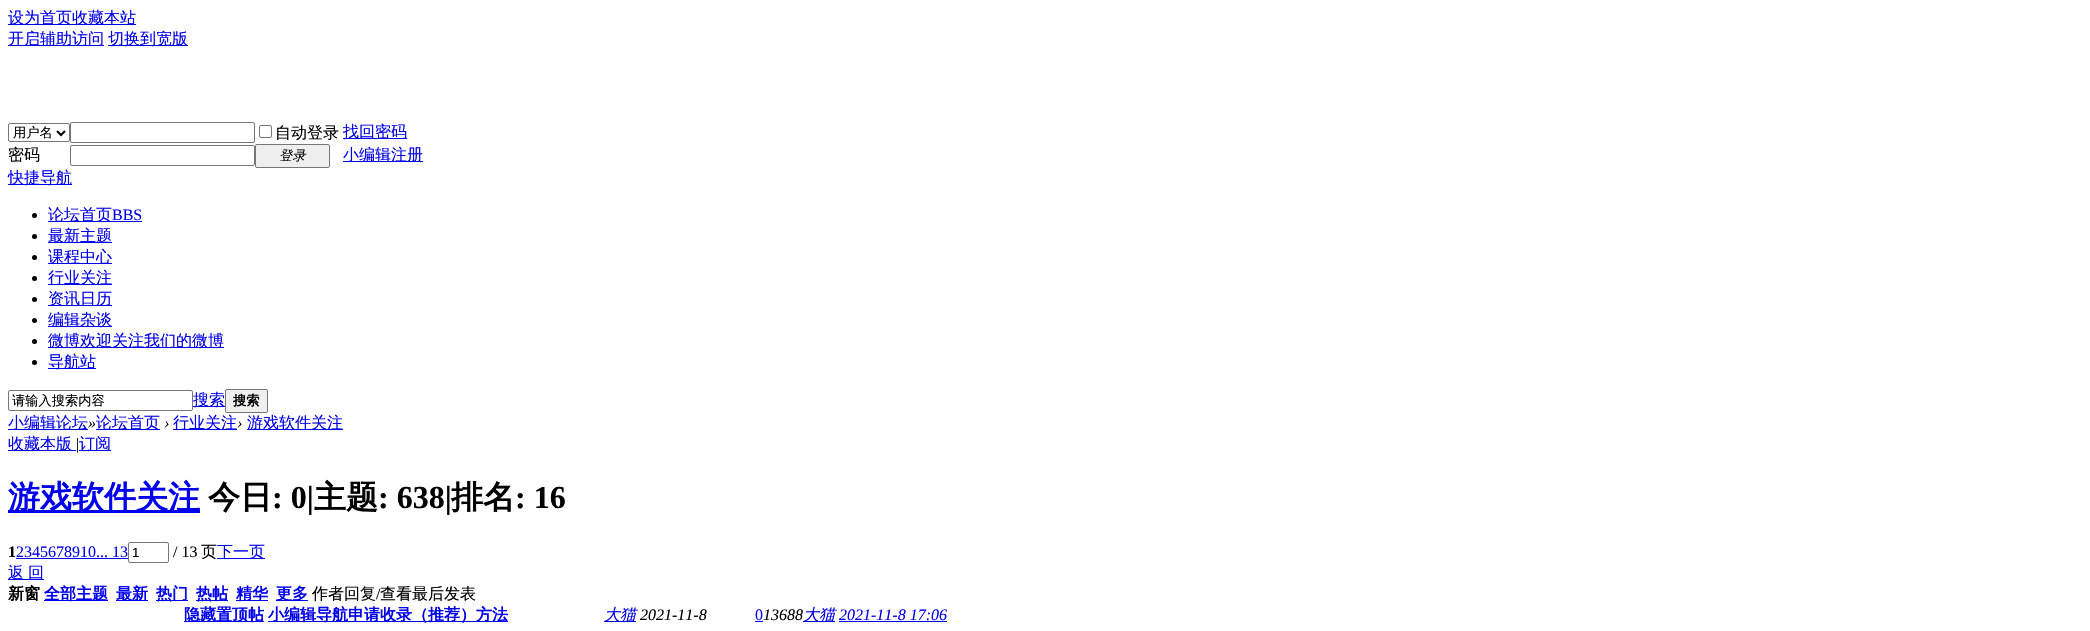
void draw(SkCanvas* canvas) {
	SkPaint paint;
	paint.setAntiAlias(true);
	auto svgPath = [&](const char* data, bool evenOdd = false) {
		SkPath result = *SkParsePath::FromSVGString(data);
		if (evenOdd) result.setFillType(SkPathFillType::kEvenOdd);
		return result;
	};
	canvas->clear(0xffffffff);
	paint.setColor(0xff0000ee);
	canvas->drawRect(SkRect::MakeXYWH(8, 24, 128, 1), paint);
	SkFont f1(fontMgr->matchFamilyStyle("WenQuanYi Zen Hei", SkFontStyle(500, SkFontStyle::kNormal_Width, SkFontStyle::kUpright_Slant)), 16);
	f1.setSubpixel(true);
	canvas->drawString("设为首页收藏本站", 8, 23, f1, paint);
	canvas->drawRect(SkRect::MakeXYWH(8, 45, 96, 1), paint);
	canvas->drawString("开启辅助访问", 8, 44, f1, paint);
	canvas->drawRect(SkRect::MakeXYWH(108, 45, 80, 1), paint);
	canvas->drawString("切换到宽版", 108, 44, f1, paint);
	paint.setStroke(true);
	paint.setStrokeWidth(1);
	paint.setColor(0xff767676);
	canvas->drawRoundRect(SkRect::MakeXYWH(8.5, 123.5, 61, 18), 1.5, 1.5, paint);
	paint.setStrokeWidth(2);
	paint.setColor(0xff000000);
	canvas->drawPath(svgPath("M57 131L61 135L65 131"), paint);
	SkFont f2(fontMgr->matchFamilyStyle("WenQuanYi Zen Hei", SkFontStyle(500, SkFontStyle::kNormal_Width, SkFontStyle::kUpright_Slant)), 13.25);
	f2.setSubpixel(true);
	paint.setStroke(false);
	canvas->drawString("用户名", 13, 137, f2, paint);
	paint.setStroke(true);
	paint.setStrokeWidth(1);
	paint.setColor(0xff767676);
	canvas->drawRoundRect(SkRect::MakeXYWH(70.5, 122.5, 184, 20), 1.5, 1.5, paint);
	canvas->drawRoundRect(SkRect::MakeXYWH(259.5, 125.5, 12, 12), 1.5, 1.5, paint);
	paint.setStroke(false);
	paint.setColor(0xff000000);
	canvas->drawString("自动登录", 275, 138, f1, paint);
	paint.setColor(0xff0000ee);
	canvas->drawRect(SkRect::MakeXYWH(343, 138, 64, 1), paint);
	canvas->drawString("找回密码", 343, 137, f1, paint);
	paint.setColor(0xff000000);
	canvas->drawString("密码", 8, 160, f1, paint);
	paint.setStroke(true);
	paint.setColor(0xff767676);
	canvas->drawRoundRect(SkRect::MakeXYWH(70.5, 145.5, 184, 20), 1.5, 1.5, paint);
	paint.setStroke(false);
	paint.setColor(0xffefefef);
	canvas->drawRoundRect(SkRect::MakeXYWH(255.5, 144.5, 74, 23), 1.5, 1.5, paint);
	paint.setStroke(true);
	paint.setColor(0xff767676);
	canvas->drawRoundRect(SkRect::MakeXYWH(255.5, 144.5, 74, 23), 1.5, 1.5, paint);
	SkFont f3(fontMgr->matchFamilyStyle("WenQuanYi Zen Hei", SkFontStyle(500, SkFontStyle::kNormal_Width, SkFontStyle::kItalic_Slant)), 13.25);
	f3.setSubpixel(true);
	paint.setStroke(false);
	paint.setColor(0xff000000);
	canvas->drawString("登录", 279, 160, f3, paint);
	paint.setColor(0xff0000ee);
	canvas->drawRect(SkRect::MakeXYWH(343, 161, 80, 1), paint);
	canvas->drawString("小编辑注册", 343, 160, f1, paint);
	canvas->drawRect(SkRect::MakeXYWH(8, 184, 64, 1), paint);
	canvas->drawString("快捷导航", 8, 183, f1, paint);
	paint.setColor(0xff000000);
	canvas->drawCircle(34.5, 215.5, 2.5, paint);
	paint.setColor(0xff0000ee);
	canvas->drawRect(SkRect::MakeXYWH(48, 221, 94, 1), paint);
	canvas->drawString("论坛首页", 48, 220, f1, paint);
	SkFont f4(fontMgr->matchFamilyStyle("Liberation Serif", SkFontStyle::Normal()), 16);
	f4.setSubpixel(true);
	canvas->drawString("BBS", 112, 220, f4, paint);
	paint.setColor(0xff000000);
	canvas->drawCircle(34.5, 236.5, 2.5, paint);
	paint.setColor(0xff0000ee);
	canvas->drawRect(SkRect::MakeXYWH(48, 242, 64, 1), paint);
	canvas->drawString("最新主题", 48, 241, f1, paint);
	paint.setColor(0xff000000);
	canvas->drawCircle(34.5, 257.5, 2.5, paint);
	paint.setColor(0xff0000ee);
	canvas->drawRect(SkRect::MakeXYWH(48, 263, 64, 1), paint);
	canvas->drawString("课程中心", 48, 262, f1, paint);
	paint.setColor(0xff000000);
	canvas->drawCircle(34.5, 278.5, 2.5, paint);
	paint.setColor(0xff0000ee);
	canvas->drawRect(SkRect::MakeXYWH(48, 284, 64, 1), paint);
	canvas->drawString("行业关注", 48, 283, f1, paint);
	paint.setColor(0xff000000);
	canvas->drawCircle(34.5, 299.5, 2.5, paint);
	paint.setColor(0xff0000ee);
	canvas->drawRect(SkRect::MakeXYWH(48, 305, 64, 1), paint);
	canvas->drawString("资讯日历", 48, 304, f1, paint);
	paint.setColor(0xff000000);
	canvas->drawCircle(34.5, 320.5, 2.5, paint);
	paint.setColor(0xff0000ee);
	canvas->drawRect(SkRect::MakeXYWH(48, 326, 64, 1), paint);
	canvas->drawString("编辑杂谈", 48, 325, f1, paint);
	paint.setColor(0xff000000);
	canvas->drawCircle(34.5, 341.5, 2.5, paint);
	paint.setColor(0xff0000ee);
	canvas->drawRect(SkRect::MakeXYWH(48, 347, 176, 1), paint);
	canvas->drawString("微博欢迎关注我们的微博", 48, 346, f1, paint);
	paint.setColor(0xff000000);
	canvas->drawCircle(34.5, 362.5, 2.5, paint);
	paint.setColor(0xff0000ee);
	canvas->drawRect(SkRect::MakeXYWH(48, 368, 48, 1), paint);
	canvas->drawString("导航站", 48, 367, f1, paint);
	paint.setStroke(true);
	paint.setColor(0xff767676);
	canvas->drawRoundRect(SkRect::MakeXYWH(8.5, 390.5, 184, 20), 1.5, 1.5, paint);
	paint.setStroke(false);
	paint.setColor(0xff000000);
	canvas->drawString("请输入搜索内容", 12, 405, f2, paint);
	paint.setColor(0xff0000ee);
	canvas->drawRect(SkRect::MakeXYWH(193, 406, 32, 1), paint);
	canvas->drawString("搜索", 193, 405, f1, paint);
	paint.setColor(0xffefefef);
	canvas->drawRoundRect(SkRect::MakeXYWH(225.5, 389.5, 42, 23), 1.5, 1.5, paint);
	paint.setStroke(true);
	paint.setColor(0xff767676);
	canvas->drawRoundRect(SkRect::MakeXYWH(225.5, 389.5, 42, 23), 1.5, 1.5, paint);
	SkFont f5(fontMgr->matchFamilyStyle("WenQuanYi Zen Hei", SkFontStyle::Bold()), 13.25);
	f5.setSubpixel(true);
	paint.setStroke(false);
	paint.setColor(0xff000000);
	canvas->drawString("搜索", 233, 405, f5, paint);
	paint.setColor(0xff0000ee);
	canvas->drawRect(SkRect::MakeXYWH(8, 429, 80, 1), paint);
	canvas->drawString("小编辑论坛", 8, 428, f1, paint);
	SkFont f6(fontMgr->matchFamilyStyle("Liberation Serif", SkFontStyle::Italic()), 16);
	f6.setSubpixel(true);
	paint.setColor(0xff000000);
	canvas->drawString("»", 88, 428, f6, paint);
	paint.setColor(0xff0000ee);
	canvas->drawRect(SkRect::MakeXYWH(96, 429, 64, 1), paint);
	canvas->drawString("论坛首页", 96, 428, f1, paint);
	paint.setColor(0xff000000);
	canvas->drawString("›", 164, 428, f6, paint);
	paint.setColor(0xff0000ee);
	canvas->drawRect(SkRect::MakeXYWH(173, 429, 64, 1), paint);
	canvas->drawString("行业关注", 173, 428, f1, paint);
	paint.setColor(0xff000000);
	canvas->drawString("›", 237, 428, f6, paint);
	paint.setColor(0xff0000ee);
	canvas->drawRect(SkRect::MakeXYWH(247, 429, 96, 1), paint);
	canvas->drawString("游戏软件关注", 247, 428, f1, paint);
	canvas->drawRect(SkRect::MakeXYWH(8, 450, 68, 1), paint);
	canvas->drawString("收藏本版", 8, 449, f1, paint);
	paint.setColor(0xff000000);
	canvas->drawString("|", 76, 449, f4, paint);
	paint.setColor(0xff0000ee);
	canvas->drawRect(SkRect::MakeXYWH(79, 450, 32, 1), paint);
	canvas->drawString("订阅", 79, 449, f1, paint);
	canvas->drawRect(SkRect::MakeXYWH(8, 510, 192, 3), paint);
	SkFont f7(fontMgr->matchFamilyStyle("WenQuanYi Zen Hei", SkFontStyle::Bold()), 32);
	f7.setSubpixel(true);
	canvas->drawString("游戏软件关注", 8, 508, f7, paint);
	paint.setColor(0xff000000);
	canvas->drawString("今日", 208, 508, f7, paint);
	SkFont f8(fontMgr->matchFamilyStyle("Liberation Serif", SkFontStyle::Bold()), 32);
	f8.setSubpixel(true);
	canvas->drawString(": 0|", 272, 508, f8, paint);
	canvas->drawString("主题", 314, 508, f7, paint);
	canvas->drawString(": 638|", 378, 508, f8, paint);
	canvas->drawString("排名", 451, 508, f7, paint);
	canvas->drawString(": 16", 515, 508, f8, paint);
	SkFont f9(fontMgr->matchFamilyStyle("Liberation Serif", SkFontStyle::Bold()), 16);
	f9.setSubpixel(true);
	canvas->drawString("1", 8, 557, f9, paint);
	paint.setColor(0xff0000ee);
	canvas->drawString("2345678910... 13", 16, 557, f4, paint);
	canvas->drawRect(SkRect::MakeXYWH(16, 558, 112, 1), paint);
	paint.setStroke(true);
	paint.setColor(0xff767676);
	canvas->drawRoundRect(SkRect::MakeXYWH(128.5, 542.5, 40, 20), 1.5, 1.5, paint);
	SkFont f10(fontMgr->matchFamilyStyle("Liberation Sans", SkFontStyle::Normal()), 13.25);
	f10.setSubpixel(true);
	paint.setStroke(false);
	paint.setColor(0xff000000);
	canvas->drawString("1", 132, 557, f10, paint);
	canvas->drawString("/ 13", 173, 557, f4, paint);
	canvas->drawString("页", 201, 557, f1, paint);
	paint.setColor(0xff0000ee);
	canvas->drawRect(SkRect::MakeXYWH(217, 558, 48, 1), paint);
	canvas->drawString("下一页", 217, 557, f1, paint);
	canvas->drawRect(SkRect::MakeXYWH(8, 579, 36, 1), paint);
	canvas->drawString("返", 8, 578, f1, paint);
	canvas->drawString("回", 28, 578, f1, paint);
	SkFont f11(fontMgr->matchFamilyStyle("WenQuanYi Zen Hei", SkFontStyle::Bold()), 16);
	f11.setSubpixel(true);
	paint.setColor(0xff000000);
	canvas->drawString("新窗", 8, 599, f11, paint);
	paint.setColor(0xff0000ee);
	canvas->drawRect(SkRect::MakeXYWH(44, 600, 64, 1), paint);
	canvas->drawString("全部主题", 44, 599, f11, paint);
	canvas->drawRect(SkRect::MakeXYWH(116, 600, 32, 1), paint);
	canvas->drawString("最新", 116, 599, f11, paint);
	canvas->drawRect(SkRect::MakeXYWH(156, 600, 32, 1), paint);
	canvas->drawString("热门", 156, 599, f11, paint);
	canvas->drawRect(SkRect::MakeXYWH(196, 600, 32, 1), paint);
	canvas->drawString("热帖", 196, 599, f11, paint);
	canvas->drawRect(SkRect::MakeXYWH(236, 600, 32, 1), paint);
	canvas->drawString("精华", 236, 599, f11, paint);
	canvas->drawRect(SkRect::MakeXYWH(276, 600, 32, 1), paint);
	canvas->drawString("更多", 276, 599, f11, paint);
	paint.setColor(0xff000000);
	canvas->drawString("作者回复", 312, 599, f1, paint);
	canvas->drawString("/", 376, 599, f4, paint);
	canvas->drawString("查看最后发表", 380, 599, f1, paint);
	paint.setColor(0xff0000ee);
	canvas->drawRect(SkRect::MakeXYWH(184, 621, 80, 1), paint);
	canvas->drawString("隐藏置顶帖", 184, 620, f11, paint);
	canvas->drawRect(SkRect::MakeXYWH(268, 621, 240, 1), paint);
	canvas->drawString("小编辑导航申请收录（推荐）方法", 268, 620, f11, paint);
	canvas->drawRect(SkRect::MakeXYWH(604, 621, 32, 1), paint);
	SkFont f12(fontMgr->matchFamilyStyle("WenQuanYi Zen Hei", SkFontStyle(500, SkFontStyle::kNormal_Width, SkFontStyle::kItalic_Slant)), 16);
	f12.setSubpixel(true);
	canvas->drawString("大猫", 604, 620, f12, paint);
	paint.setColor(0xff000000);
	canvas->drawString("2021-11-8", 640, 620, f6, paint);
	paint.setColor(0xff0000ee);
	canvas->drawString("0", 755, 620, f4, paint);
	canvas->drawRect(SkRect::MakeXYWH(755, 621, 8, 1), paint);
	paint.setColor(0xff000000);
	canvas->drawString("13688", 763, 620, f6, paint);
	paint.setColor(0xff0000ee);
	canvas->drawRect(SkRect::MakeXYWH(803, 621, 32, 1), paint);
	canvas->drawString("大猫", 803, 620, f12, paint);
	canvas->drawString("2021-11-8 17:06", 839, 620, f6, paint);
	canvas->drawRect(SkRect::MakeXYWH(839, 621, 108, 1), paint);
}
